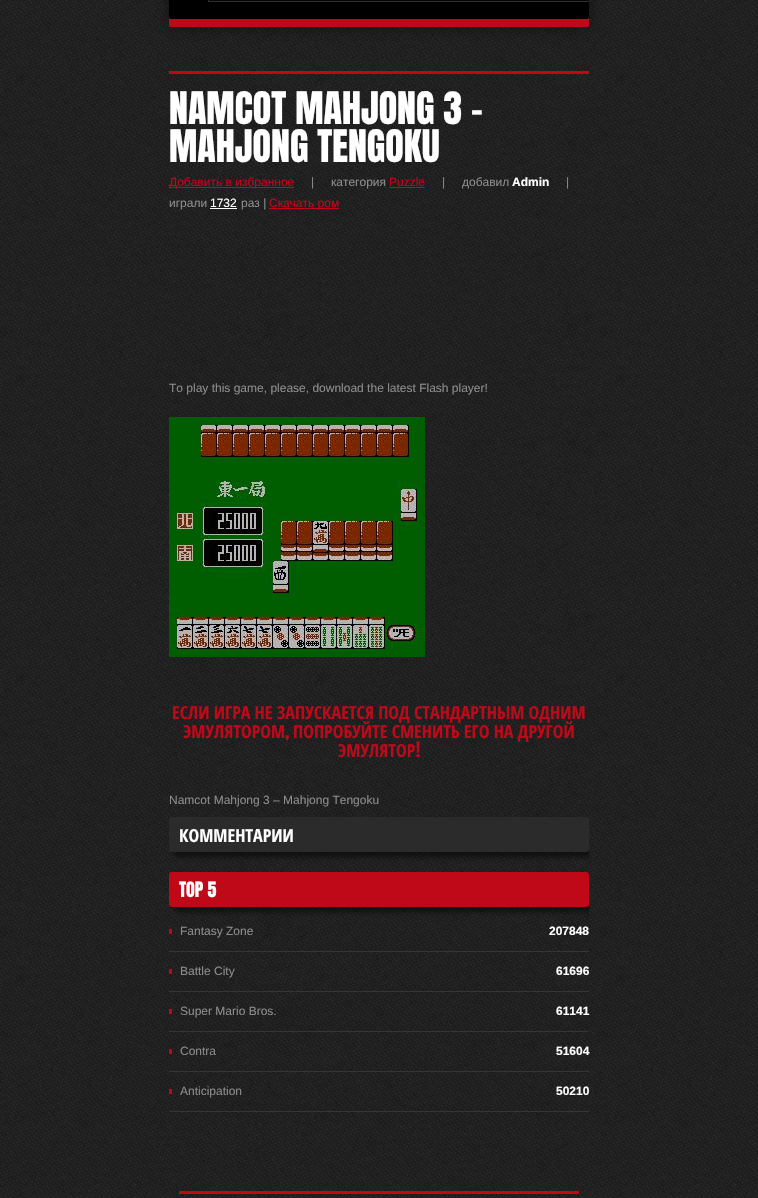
void draw(SkCanvas* canvas) {
	SkPaint paint;
	paint.setAntiAlias(true);
	auto spacedText = [&](const char* s, float x, float y, const SkFont& font, const SkPaint& ink, float letter, float word) {
		std::vector<SkGlyphID> glyphs(font.countText(s, strlen(s), SkTextEncoding::kUTF8));
		std::vector<float> xs(glyphs.size());
		font.textToGlyphs(s, strlen(s), SkTextEncoding::kUTF8, glyphs);
		font.getXPos(glyphs, xs, x);
		float extra = 0;
		for (size_t i = 0; i < glyphs.size(); i++) {
			xs[i] += extra;
			extra += letter + word * (glyphs[i] == font.unicharToGlyph(' '));
		}
		canvas->drawTextBlob(SkTextBlob::MakeFromPosHGlyphs(glyphs, xs, y, font), 0, 0, ink);
	};
	auto svgPath = [&](const char* data, bool evenOdd = false) {
		SkPath result = *SkParsePath::FromSVGString(data);
		if (evenOdd) result.setFillType(SkPathFillType::kEvenOdd);
		return result;
	};
	canvas->clear(0xffffffff);
	canvas->drawImageRect(SkImages::DeferredFromEncodedData(SkData::MakeFromFileName("img1.png")), SkRect::MakeXYWH(0, 0, 758, 1198), SkSamplingOptions());
	paint.setColor(0x73000000);
	paint.setMaskFilter(SkMaskFilter::MakeBlur(kNormal_SkBlurStyle, 8));
	canvas->drawRoundRect(SkRect::MakeXYWH(169, -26, 420, 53), 2, 2, paint);
	paint.setMaskFilter(nullptr);
	paint.setColor(0xffbf0818);
	canvas->drawRoundRect(SkRect::MakeXYWH(169, -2, 420, 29), 2, 2, paint);
	paint.setColor(0xff000000);
	canvas->drawRoundRect(SkRect::MakeXYWH(169, -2, 420, 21), 2, 2, paint);
	paint.setColor(0xff040404);
	canvas->drawRect(SkRect::MakeXYWH(208, 0, 381, 1), paint);
	paint.setColor(0xff2f2f2f);
	canvas->drawPath(svgPath("M208-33V2H589V1H209V-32H589V-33Z"), paint);
	paint.setColor(0xffbf0818);
	canvas->drawRect(SkRect::MakeXYWH(169, 71, 420, 3), paint);
	SkFont f1(fontMgr->matchFamilyStyle("Anton", SkFontStyle::Normal()), 38);
	f1.setSubpixel(true);
	paint.setColor(0xffffffff);
	canvas->drawString("NAMCOT MAHJONG 3 -", 169, 124, f1, paint);
	canvas->drawString("MAHJONG TENGOKU", 169, 162, f1, paint);
	paint.setColor(0xffbf0818);
	canvas->drawRect(SkRect::MakeXYWH(169, 187, 125, 1), paint);
	SkFont f2(fontMgr->matchFamilyStyle("Liberation Sans", SkFontStyle::Normal()), 12);
	f2.setSubpixel(true);
	canvas->drawString("Добавить в избранное", 169, 186, f2, paint);
	paint.setColor(0xff8d8c8c);
	canvas->drawString("|", 311, 186, f2, paint);
	canvas->drawString("категория", 331, 186, f2, paint);
	paint.setColor(0xffbf0818);
	canvas->drawRect(SkRect::MakeXYWH(389, 187, 36, 1), paint);
	canvas->drawString("Puzzle", 389, 186, f2, paint);
	paint.setColor(0xff8d8c8c);
	canvas->drawString("|", 442, 186, f2, paint);
	canvas->drawString("добавил", 462, 186, f2, paint);
	SkFont f3(fontMgr->matchFamilyStyle("Liberation Sans", SkFontStyle::Bold()), 12);
	f3.setSubpixel(true);
	paint.setColor(0xffffffff);
	canvas->drawString("Admin", 512, 186, f3, paint);
	paint.setColor(0xff8d8c8c);
	canvas->drawString("|", 566, 186, f2, paint);
	canvas->drawString("играли", 169, 207, f2, paint);
	paint.setColor(0xffffffff);
	canvas->drawRect(SkRect::MakeXYWH(210, 208, 27, 1), paint);
	canvas->drawString("1732", 210, 207, f2, paint);
	paint.setColor(0xff8d8c8c);
	canvas->drawString("раз |", 241, 207, f2, paint);
	paint.setColor(0xffbf0818);
	canvas->drawRect(SkRect::MakeXYWH(269, 208, 70, 1), paint);
	canvas->drawString("Скачать ром", 269, 207, f2, paint);
	paint.setColor(0xff8d8c8c);
	canvas->drawString("To play this game, please, download the latest Flash player!", 169, 392, f2, paint);
	canvas->drawImageRect(SkImages::DeferredFromEncodedData(SkData::MakeFromFileName("img2.png")), SkRect::MakeXYWH(169, 417, 256, 240), SkSamplingOptions());
	SkFont f4(fontMgr->matchFamilyStyle("Open Sans Condensed", SkFontStyle::Bold()), 18);
	f4.setSubpixel(true);
	paint.setColor(0xffbf0818);
	spacedText("ЕСЛИ ИГРА НЕ ЗАПУСКАЕТСЯ ПОД СТАНДАРТНЫМ ОДНИМ", 172, 719, f4, paint, 0, -0.25);
	canvas->drawString("ЭМУЛЯТОРОМ", 183, 738, f4, paint);
	SkFont f5(fontMgr->matchFamilyStyle("Anton", SkFontStyle::Normal()), 18);
	f5.setSubpixel(true);
	canvas->drawString(",", 285, 738, f5, paint);
	spacedText("ПОПРОБУЙТЕ СМЕНИТЬ ЕГО НА ДРУГОЙ", 293, 738, f4, paint, 0, -0.25);
	canvas->drawString("ЭМУЛЯТОР", 338, 757, f4, paint);
	canvas->drawString("!", 416, 757, f5, paint);
	paint.setColor(0xff8d8c8c);
	canvas->drawString("Namcot Mahjong 3 – Mahjong Tengoku", 169, 804, f2, paint);
	canvas->save();
	canvas->clipRect(SkRect::MakeXYWH(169, 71, 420, 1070));
	paint.setColor(0x80000000);
	paint.setMaskFilter(SkMaskFilter::MakeBlur(kNormal_SkBlurStyle, 2.5));
	canvas->drawRoundRect(SkRect::MakeXYWH(174, 822, 420, 35), 3, 3, paint);
	paint.setMaskFilter(nullptr);
	canvas->restore();
	paint.setColor(0xff2b2b2b);
	canvas->drawRoundRect(SkRect::MakeXYWH(169, 817, 420, 35), 3, 3, paint);
	paint.setColor(0xffffffff);
	canvas->drawString("КОММЕНТАРИИ", 179, 842, f4, paint);
	canvas->save();
	canvas->clipRect(SkRect::MakeXYWH(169, 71, 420, 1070));
	paint.setColor(0x80000000);
	paint.setMaskFilter(SkMaskFilter::MakeBlur(kNormal_SkBlurStyle, 2.5));
	canvas->drawRoundRect(SkRect::MakeXYWH(174, 877, 420, 35), 3, 3, paint);
	paint.setMaskFilter(nullptr);
	canvas->restore();
	paint.setColor(0xffbf0818);
	canvas->drawRoundRect(SkRect::MakeXYWH(169, 872, 420, 35), 3, 3, paint);
	paint.setColor(0xffffffff);
	canvas->drawString("TOP 5", 179, 897, f5, paint);
	paint.setColor(0xff363535);
	canvas->drawRect(SkRect::MakeXYWH(169, 951, 420, 1), paint);
	paint.setColor(0xff8d8c8c);
	canvas->drawString("Fantasy Zone", 180, 935, f2, paint);
	paint.setColor(0xffbf0818);
	canvas->drawRect(SkRect::MakeXYWH(169, 929, 3, 5), paint);
	paint.setColor(0xffffffff);
	canvas->drawString("207848", 549, 935, f3, paint);
	paint.setColor(0xff363535);
	canvas->drawRect(SkRect::MakeXYWH(169, 991, 420, 1), paint);
	paint.setColor(0xff8d8c8c);
	canvas->drawString("Battle City", 180, 975, f2, paint);
	paint.setColor(0xffbf0818);
	canvas->drawRect(SkRect::MakeXYWH(169, 969, 3, 5), paint);
	paint.setColor(0xffffffff);
	canvas->drawString("61696", 556, 975, f3, paint);
	paint.setColor(0xff363535);
	canvas->drawRect(SkRect::MakeXYWH(169, 1031, 420, 1), paint);
	paint.setColor(0xff8d8c8c);
	canvas->drawString("Super Mario Bros.", 180, 1015, f2, paint);
	paint.setColor(0xffbf0818);
	canvas->drawRect(SkRect::MakeXYWH(169, 1009, 3, 5), paint);
	paint.setColor(0xffffffff);
	canvas->drawString("61141", 556, 1015, f3, paint);
	paint.setColor(0xff363535);
	canvas->drawRect(SkRect::MakeXYWH(169, 1071, 420, 1), paint);
	paint.setColor(0xff8d8c8c);
	canvas->drawString("Contra", 180, 1055, f2, paint);
	paint.setColor(0xffbf0818);
	canvas->drawRect(SkRect::MakeXYWH(169, 1049, 3, 5), paint);
	paint.setColor(0xffffffff);
	canvas->drawString("51604", 556, 1055, f3, paint);
	paint.setColor(0xff363535);
	canvas->drawRect(SkRect::MakeXYWH(169, 1111, 420, 1), paint);
	paint.setColor(0xff8d8c8c);
	canvas->drawString("Anticipation", 180, 1095, f2, paint);
	paint.setColor(0xffbf0818);
	canvas->drawRect(SkRect::MakeXYWH(169, 1089, 3, 5), paint);
	paint.setColor(0xffffffff);
	canvas->drawString("50210", 556, 1095, f3, paint);
	paint.setColor(0xffbf0818);
	canvas->drawRect(SkRect::MakeXYWH(179, 1191, 400, 3), paint);
}
